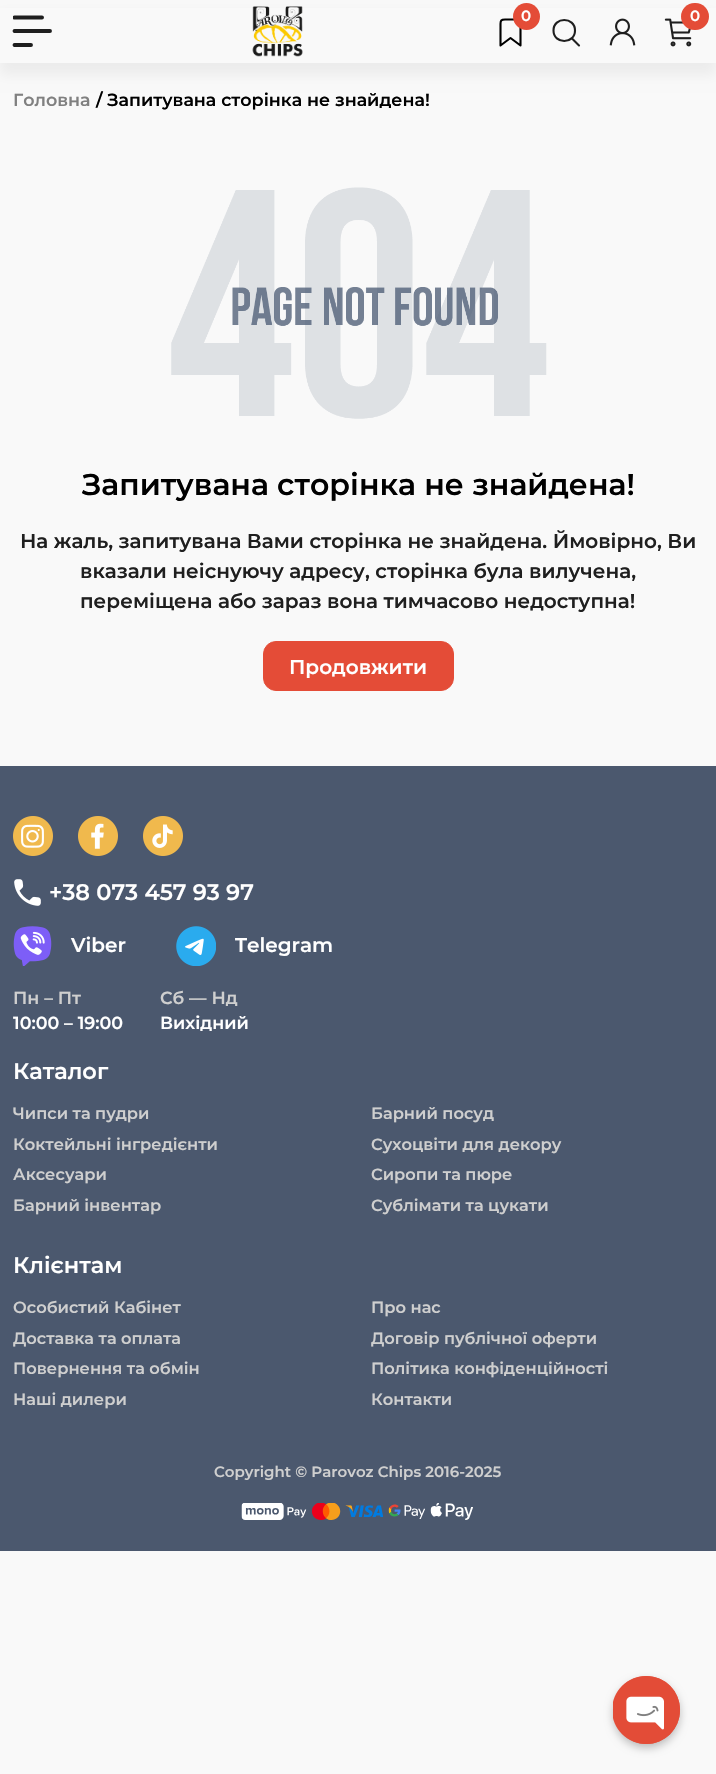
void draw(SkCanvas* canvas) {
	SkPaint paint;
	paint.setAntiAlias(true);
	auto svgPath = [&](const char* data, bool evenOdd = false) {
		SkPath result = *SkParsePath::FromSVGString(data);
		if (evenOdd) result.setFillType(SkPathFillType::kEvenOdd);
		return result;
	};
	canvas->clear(0xfff9f9f9);
	paint.setColor(0x0d000000);
	paint.setMaskFilter(SkMaskFilter::MakeBlur(kNormal_SkBlurStyle, 6));
	canvas->drawRect(SkRect::MakeXYWH(0, 13, 716, 62), paint);
	paint.setMaskFilter(nullptr);
	paint.setColor(0xfff9f9f9);
	canvas->drawRect(SkRect::MakeXYWH(0, 8, 716, 55), paint);
	paint.setStroke(true);
	paint.setStrokeWidth(3.9);
	paint.setStrokeCap(SkPaint::kRound_Cap);
	paint.setColor(0xff1f1f1f);
	canvas->drawPath(svgPath("M14.5 31H50M14.5 45H31"), paint);
	canvas->save();
	canvas->clipRect(SkRect::MakeXYWH(13, 11, 40, 40));
	canvas->drawPath(svgPath("M14.5 17.5H42"), paint);
	canvas->restore();
	canvas->drawImageRect(SkImages::DeferredFromEncodedData(SkData::MakeFromFileName("img1.png")), SkRect::MakeXYWH(252, 6, 51, 51), SkSamplingOptions());
	paint.setStrokeWidth(2.1);
	paint.setStrokeCap(SkPaint::kButt_Cap);
	paint.setStrokeJoin(SkPaint::kRound_Join);
	paint.setColor(0xff000000);
	canvas->drawPath(svgPath("M500.5 24C500.5 20.5 501 19.5 505 19.5H510.5C520 19.5 520.5 18 520.5 27.5V45.5L510.5 38L500.5 45.5Z"), paint);
	paint.setStroke(false);
	paint.setColor(0xffe44c37);
	canvas->drawCircle(526.5, 16.5, 13.5, paint);
	SkFont f1(fontMgr->matchFamilyStyle("Montserrat", SkFontStyle(100, SkFontStyle::kNormal_Width, SkFontStyle::kUpright_Slant)), 15);
	f1.setSubpixel(true);
	paint.setColor(0xffffffff);
	canvas->drawString("0", 521, 21, f1, paint);
	canvas->drawImageRect(SkImages::DeferredFromEncodedData(SkData::MakeFromFileName("img2.png")), SkRect::MakeXYWH(664, 18, 28, 29), SkSamplingOptions());
	paint.setColor(0xffe44c37);
	canvas->drawRoundRect(SkRect::MakeXYWH(681, 3, 28, 27), 13.5, 13.5, paint);
	paint.setColor(0xffffffff);
	canvas->drawString("0", 690, 21, f1, paint);
	paint.setStroke(true);
	paint.setStrokeCap(SkPaint::kRound_Cap);
	paint.setColor(0xff1f1f1f);
	canvas->drawPath(svgPath("M571.5 38L579 45.5M575 30.5C575 44.5 553.5 44.5 553.5 30.5C553.5 16.5 575 16.5 575 30.5Z"), paint);
	canvas->drawImageRect(SkImages::DeferredFromEncodedData(SkData::MakeFromFileName("img3.png")), SkRect::MakeXYWH(609, 18, 27, 28), SkSamplingOptions());
	SkFont f2(fontMgr->matchFamilyStyle("Montserrat", SkFontStyle(100, SkFontStyle::kNormal_Width, SkFontStyle::kUpright_Slant)), 17.5);
	f2.setSubpixel(true);
	paint.setStroke(false);
	paint.setColor(0xff808080);
	canvas->drawString("Головна", 13, 106, f2, paint);
	paint.setColor(0xff000000);
	canvas->drawString("/ Запитувана сторінка не знайдена!", 96, 106, f2, paint);
	canvas->drawImageRect(SkImages::DeferredFromEncodedData(SkData::MakeFromFileName("img4.png")), SkRect::MakeXYWH(171, 187, 376, 232), SkSamplingOptions());
	SkFont f3(fontMgr->matchFamilyStyle("Montserrat", SkFontStyle(100, SkFontStyle::kNormal_Width, SkFontStyle::kUpright_Slant)), 30);
	f3.setSubpixel(true);
	canvas->drawString("Запитувана сторінка не знайдена!", 82, 495, f3, paint);
	SkFont f4(fontMgr->matchFamilyStyle("Montserrat", SkFontStyle(100, SkFontStyle::kNormal_Width, SkFontStyle::kUpright_Slant)), 20);
	f4.setSubpixel(true);
	paint.setColor(0xff1f1f1f);
	canvas->drawString("На жаль, запитувана Вами сторінка не знайдена. Ймовірно, Ви", 20, 548, f4, paint);
	canvas->drawString("вказали неіснуючу адресу, сторінка була вилучена,", 80, 578, f4, paint);
	canvas->drawString("переміщена або зараз вона тимчасово недоступна!", 80, 608, f4, paint);
	paint.setColor(0xffe44c37);
	canvas->drawRoundRect(SkRect::MakeXYWH(263.5, 641.5, 190, 49), 12.5, 12.5, paint);
	paint.setStroke(true);
	paint.setStrokeWidth(1);
	paint.setStrokeCap(SkPaint::kButt_Cap);
	paint.setStrokeJoin(SkPaint::kMiter_Join);
	canvas->drawRoundRect(SkRect::MakeXYWH(263.5, 641.5, 190, 49), 12.5, 12.5, paint);
	paint.setStroke(false);
	paint.setColor(0xffffffff);
	canvas->drawString("Продовжити", 289, 674, f4, paint);
	paint.setColor(0xff4b586e);
	canvas->drawRect(SkRect::MakeXYWH(0, 766, 716, 785), paint);
	canvas->drawImageRect(SkImages::DeferredFromEncodedData(SkData::MakeFromFileName("img5.png")), SkRect::MakeXYWH(13, 816, 40, 40), SkSamplingOptions());
	canvas->drawImageRect(SkImages::DeferredFromEncodedData(SkData::MakeFromFileName("img6.png")), SkRect::MakeXYWH(78, 816, 40, 40), SkSamplingOptions());
	canvas->drawImageRect(SkImages::DeferredFromEncodedData(SkData::MakeFromFileName("img7.png")), SkRect::MakeXYWH(143, 816, 40, 40), SkSamplingOptions());
	canvas->drawImageRect(SkImages::DeferredFromEncodedData(SkData::MakeFromFileName("img8.png")), SkRect::MakeXYWH(14, 879, 27, 27), SkSamplingOptions());
	SkFont f5(fontMgr->matchFamilyStyle("Montserrat", SkFontStyle(100, SkFontStyle::kNormal_Width, SkFontStyle::kUpright_Slant)), 22.5);
	f5.setSubpixel(true);
	paint.setColor(0xffffffff);
	canvas->drawString("+38 073 457 93 97", 49, 900, f5, paint);
	canvas->drawImageRect(SkImages::DeferredFromEncodedData(SkData::MakeFromFileName("img9.png")), SkRect::MakeXYWH(13, 926, 39, 40), SkSamplingOptions());
	canvas->drawString("Viber", 71, 952, f4, paint);
	canvas->drawImageRect(SkImages::DeferredFromEncodedData(SkData::MakeFromFileName("img10.png")), SkRect::MakeXYWH(176, 926, 40, 40), SkSamplingOptions());
	canvas->drawString("Telegram", 235, 952, f4, paint);
	paint.setColor(0xffcfcfcf);
	canvas->drawString("Пн – Пт", 13, 1004, f2, paint);
	paint.setColor(0xffffffff);
	canvas->drawString("10:00 – 19:00", 13, 1029, f2, paint);
	paint.setColor(0xffcfcfcf);
	canvas->drawString("Сб — Нд", 160, 1004, f2, paint);
	paint.setColor(0xffffffff);
	canvas->drawString("Вихідний", 160, 1029, f2, paint);
	canvas->drawString("Каталог", 13, 1079, f5, paint);
	SkFont f6(fontMgr->matchFamilyStyle("Montserrat", SkFontStyle(100, SkFontStyle::kNormal_Width, SkFontStyle::kUpright_Slant)), 16.25);
	f6.setSubpixel(true);
	paint.setColor(0xffcfcfcf);
	canvas->drawString("Чипси та пудри", 13, 1119, f6, paint);
	canvas->drawString("Коктейльні інгредієнти", 13, 1150, f6, paint);
	canvas->drawString("Аксесуари", 13, 1180, f6, paint);
	canvas->drawString("Барний інвентар", 13, 1211, f6, paint);
	canvas->drawString("Барний посуд", 371, 1119, f6, paint);
	canvas->drawString("Сухоцвіти для декору", 371, 1150, f6, paint);
	canvas->drawString("Сиропи та пюре", 371, 1180, f6, paint);
	canvas->drawString("Сублімати та цукати", 371, 1211, f6, paint);
	paint.setColor(0xffffffff);
	canvas->drawString("Клієнтам", 13, 1273, f5, paint);
	paint.setColor(0xffcfcfcf);
	canvas->drawString("Особистий Кабінет", 13, 1313, f6, paint);
	canvas->drawString("Доставка та оплата", 13, 1344, f6, paint);
	canvas->drawString("Повернення та обмін", 13, 1374, f6, paint);
	canvas->drawString("Наші дилери", 13, 1405, f6, paint);
	canvas->drawString("Про нас", 371, 1313, f6, paint);
	canvas->drawString("Договір публічної оферти", 371, 1344, f6, paint);
	canvas->drawString("Політика конфіденційності", 371, 1374, f6, paint);
	canvas->drawString("Контакти", 371, 1405, f6, paint);
	canvas->drawString("Copyright © Parovoz Chips 2016-2025", 214, 1477, f1, paint);
	canvas->drawImageRect(SkImages::DeferredFromEncodedData(SkData::MakeFromFileName("img11.png")), SkRect::MakeXYWH(241, 1503, 232, 17), SkSamplingOptions());
	paint.setColor(0x40000000);
	paint.setMaskFilter(SkMaskFilter::MakeBlur(kNormal_SkBlurStyle, 4));
	canvas->drawRoundRect(SkRect::MakeXYWH(613, 1680, 67, 68), 33.5, 33.5, paint);
	paint.setMaskFilter(nullptr);
	paint.setColor(0xffe44c37);
	canvas->drawRoundRect(SkRect::MakeXYWH(613, 1676, 67, 68), 33.5, 33.5, paint);
	canvas->drawImageRect(SkImages::DeferredFromEncodedData(SkData::MakeFromFileName("img12.png")), SkRect::MakeXYWH(613, 1676, 67, 68), SkSamplingOptions());
}
